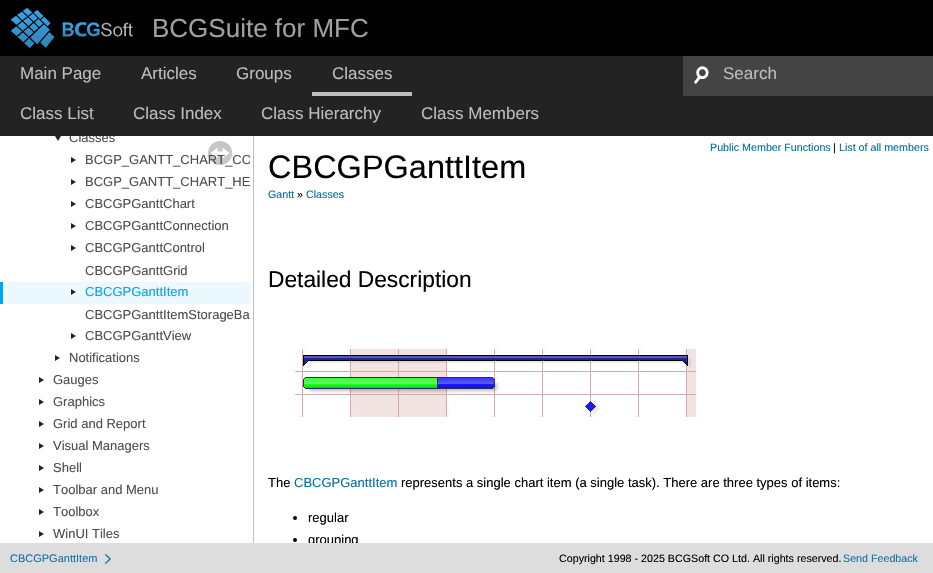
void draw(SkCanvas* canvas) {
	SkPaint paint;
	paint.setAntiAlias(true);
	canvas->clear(0xffffffff);
	paint.setColor(0xff000000);
	canvas->drawRect(SkRect::MakeXYWH(0, 0, 933, 56), paint);
	canvas->drawImageRect(SkImages::DeferredFromEncodedData(SkData::MakeFromFileName("img1.png")), SkRect::MakeXYWH(11, 8, 122, 40), SkSamplingOptions());
	SkFont f1(fontMgr->matchFamilyStyle("Liberation Sans", SkFontStyle::Normal()), 26);
	f1.setSubpixel(true);
	paint.setColor(0xffa0a0a0);
	canvas->drawString("BCGSuite for MFC", 152, 37, f1, paint);
	paint.setColor(0xff232323);
	canvas->drawRect(SkRect::MakeXYWH(0, 56, 683, 40), paint);
	SkFont f2(fontMgr->matchFamilyStyle("Liberation Sans", SkFontStyle::Normal()), 17);
	f2.setSubpixel(true);
	paint.setColor(0xffbdbdbd);
	canvas->drawString("Main Page", 20, 79, f2, paint);
	canvas->drawString("Articles", 141, 79, f2, paint);
	canvas->drawString("Groups", 236, 79, f2, paint);
	canvas->drawRect(SkRect::MakeXYWH(312, 92, 100, 4), paint);
	canvas->drawString("Classes", 332, 79, f2, paint);
	paint.setColor(0xff444444);
	canvas->drawRect(SkRect::MakeXYWH(683, 56, 250, 40), paint);
	canvas->drawImageRect(SkImages::DeferredFromEncodedData(SkData::MakeFromFileName("img2.png")), SkRect::MakeXYWH(694, 66, 15, 18), SkSamplingOptions());
	paint.setColor(0xffbdbdbd);
	canvas->drawString("Search", 723, 79, f2, paint);
	paint.setColor(0xff232323);
	canvas->drawRect(SkRect::MakeXYWH(0, 96, 933, 40), paint);
	paint.setColor(0xffbdbdbd);
	canvas->drawString("Class List", 20, 119, f2, paint);
	canvas->drawString("Class Index", 133, 119, f2, paint);
	canvas->drawString("Class Hierarchy", 261, 119, f2, paint);
	canvas->drawString("Class Members", 421, 119, f2, paint);
	canvas->drawImageRect(SkImages::DeferredFromEncodedData(SkData::MakeFromFileName("img3.png")), SkRect::MakeXYWH(55, 136, 6, 5), SkSamplingOptions());
	canvas->save();
	canvas->clipRect(SkRect::MakeXYWH(0, 136, 250, 407));
	SkFont f3(fontMgr->matchFamilyStyle("Liberation Sans", SkFontStyle::Normal()), 13);
	f3.setSubpixel(true);
	paint.setColor(0xff4c4c4c);
	canvas->drawString("Classes", 69, 142, f3, paint);
	canvas->restore();
	canvas->drawImageRect(SkImages::DeferredFromEncodedData(SkData::MakeFromFileName("img4.png")), SkRect::MakeXYWH(71, 157, 5, 6), SkSamplingOptions());
	canvas->save();
	canvas->clipRect(SkRect::MakeXYWH(0, 136, 250, 407));
	canvas->drawString("BCGP_GANTT_CHART_CO", 85, 164, f3, paint);
	canvas->restore();
	canvas->drawImageRect(SkImages::DeferredFromEncodedData(SkData::MakeFromFileName("img4.png")), SkRect::MakeXYWH(71, 179, 5, 6), SkSamplingOptions());
	canvas->drawString("BCGP_GANTT_CHART_HE", 85, 186, f3, paint);
	canvas->drawImageRect(SkImages::DeferredFromEncodedData(SkData::MakeFromFileName("img4.png")), SkRect::MakeXYWH(71, 201, 5, 6), SkSamplingOptions());
	canvas->drawString("CBCGPGanttChart", 85, 208, f3, paint);
	canvas->drawImageRect(SkImages::DeferredFromEncodedData(SkData::MakeFromFileName("img4.png")), SkRect::MakeXYWH(71, 223, 5, 6), SkSamplingOptions());
	canvas->drawString("CBCGPGanttConnection", 85, 230, f3, paint);
	canvas->drawImageRect(SkImages::DeferredFromEncodedData(SkData::MakeFromFileName("img4.png")), SkRect::MakeXYWH(71, 245, 5, 6), SkSamplingOptions());
	canvas->drawString("CBCGPGanttControl", 85, 252, f3, paint);
	canvas->drawString("CBCGPGanttGrid", 85, 275, f3, paint);
	paint.setColor(0xffebf8fe);
	canvas->drawRect(SkRect::MakeXYWH(3, 282, 247, 22), paint);
	paint.setColor(0xff00a4ef);
	canvas->drawRect(SkRect::MakeXYWH(0, 282, 3, 22), paint);
	canvas->drawImageRect(SkImages::DeferredFromEncodedData(SkData::MakeFromFileName("img4.png")), SkRect::MakeXYWH(71, 289, 5, 6), SkSamplingOptions());
	canvas->drawString("CBCGPGanttItem", 85, 296, f3, paint);
	paint.setColor(0xff4c4c4c);
	canvas->drawString("CBCGPGanttItemStorageBa", 85, 319, f3, paint);
	canvas->drawImageRect(SkImages::DeferredFromEncodedData(SkData::MakeFromFileName("img4.png")), SkRect::MakeXYWH(71, 333, 5, 6), SkSamplingOptions());
	canvas->drawString("CBCGPGanttView", 85, 340, f3, paint);
	canvas->drawImageRect(SkImages::DeferredFromEncodedData(SkData::MakeFromFileName("img4.png")), SkRect::MakeXYWH(55, 355, 5, 6), SkSamplingOptions());
	canvas->drawString("Notifications", 69, 362, f3, paint);
	canvas->drawImageRect(SkImages::DeferredFromEncodedData(SkData::MakeFromFileName("img4.png")), SkRect::MakeXYWH(39, 377, 5, 6), SkSamplingOptions());
	canvas->drawString("Gauges", 53, 384, f3, paint);
	canvas->drawImageRect(SkImages::DeferredFromEncodedData(SkData::MakeFromFileName("img4.png")), SkRect::MakeXYWH(39, 399, 5, 6), SkSamplingOptions());
	canvas->drawString("Graphics", 53, 406, f3, paint);
	canvas->drawImageRect(SkImages::DeferredFromEncodedData(SkData::MakeFromFileName("img4.png")), SkRect::MakeXYWH(39, 421, 5, 6), SkSamplingOptions());
	canvas->drawString("Grid and Report", 53, 428, f3, paint);
	canvas->drawImageRect(SkImages::DeferredFromEncodedData(SkData::MakeFromFileName("img4.png")), SkRect::MakeXYWH(39, 443, 5, 6), SkSamplingOptions());
	canvas->drawString("Visual Managers", 53, 450, f3, paint);
	canvas->drawImageRect(SkImages::DeferredFromEncodedData(SkData::MakeFromFileName("img4.png")), SkRect::MakeXYWH(39, 465, 5, 6), SkSamplingOptions());
	canvas->drawString("Shell", 53, 472, f3, paint);
	canvas->drawImageRect(SkImages::DeferredFromEncodedData(SkData::MakeFromFileName("img4.png")), SkRect::MakeXYWH(39, 487, 5, 6), SkSamplingOptions());
	canvas->drawString("Toolbar and Menu", 53, 494, f3, paint);
	canvas->drawImageRect(SkImages::DeferredFromEncodedData(SkData::MakeFromFileName("img4.png")), SkRect::MakeXYWH(39, 509, 5, 6), SkSamplingOptions());
	canvas->drawString("Toolbox", 53, 516, f3, paint);
	canvas->drawImageRect(SkImages::DeferredFromEncodedData(SkData::MakeFromFileName("img4.png")), SkRect::MakeXYWH(39, 531, 5, 6), SkSamplingOptions());
	canvas->drawString("WinUI Tiles", 53, 538, f3, paint);
	canvas->drawImageRect(SkImages::DeferredFromEncodedData(SkData::MakeFromFileName("img5.png")), SkRect::MakeXYWH(208, 141, 24, 24), SkSamplingOptions());
	paint.setColor(0xffbebebe);
	canvas->drawRect(SkRect::MakeXYWH(253, 136, 1, 407), paint);
	SkFont f4(fontMgr->matchFamilyStyle("Liberation Sans", SkFontStyle::Normal()), 10.7);
	f4.setSubpixel(true);
	paint.setColor(0xff00709f);
	canvas->drawString("Public Member Functions", 710, 151, f4, paint);
	paint.setColor(0xff000000);
	canvas->drawString("|", 833, 151, f4, paint);
	paint.setColor(0xff00709f);
	canvas->drawString("List of all members", 839, 151, f4, paint);
	SkFont f5(fontMgr->matchFamilyStyle("Liberation Sans", SkFontStyle::Normal()), 32.5);
	f5.setSubpixel(true);
	paint.setColor(0xff000000);
	canvas->drawString("CBCGPGanttItem", 268, 178, f5, paint);
	paint.setColor(0xff00709f);
	canvas->drawString("Gantt", 268, 198, f4, paint);
	paint.setColor(0xff000000);
	canvas->drawString("»", 297, 198, f4, paint);
	paint.setColor(0xff00709f);
	canvas->drawString("Classes", 306, 198, f4, paint);
	SkFont f6(fontMgr->matchFamilyStyle("Liberation Sans", SkFontStyle::Normal()), 22.75);
	f6.setSubpixel(true);
	paint.setColor(0xff000000);
	canvas->drawString("Detailed Description", 268, 287, f6, paint);
	canvas->drawImageRect(SkImages::DeferredFromEncodedData(SkData::MakeFromFileName("img6.png")), SkRect::MakeXYWH(292, 345, 408, 72), SkSamplingOptions());
	canvas->drawString("The", 268, 487, f3, paint);
	paint.setColor(0xff00709f);
	canvas->drawString("CBCGPGanttItem", 294, 487, f3, paint);
	paint.setColor(0xff000000);
	canvas->drawString("represents a single chart item (a single task). There are three types of items:", 401, 487, f3, paint);
	canvas->drawCircle(295, 518, 2, paint);
	canvas->drawString("regular", 308, 522, f3, paint);
	canvas->drawCircle(295, 540, 2, paint);
	canvas->drawString("grouping", 308, 544, f3, paint);
	paint.setColor(0xffdddddd);
	canvas->drawRect(SkRect::MakeXYWH(0, 543, 933, 30), paint);
	canvas->drawImageRect(SkImages::DeferredFromEncodedData(SkData::MakeFromFileName("img7.png")), SkRect::MakeXYWH(105, 554, 6, 10), SkSamplingOptions());
	SkFont f7(fontMgr->matchFamilyStyle("Liberation Sans", SkFontStyle::Normal()), 11);
	f7.setSubpixel(true);
	paint.setColor(0xff1570a6);
	canvas->drawString("CBCGPGanttItem", 10, 562, f7, paint);
	paint.setColor(0xff000000);
	canvas->drawString("Copyright 1998 - 2025 BCGSoft CO Ltd. All rights reserved.", 559, 562, f4, paint);
	paint.setColor(0xff1570a6);
	canvas->drawString("Send Feedback", 843, 562, f4, paint);
}
